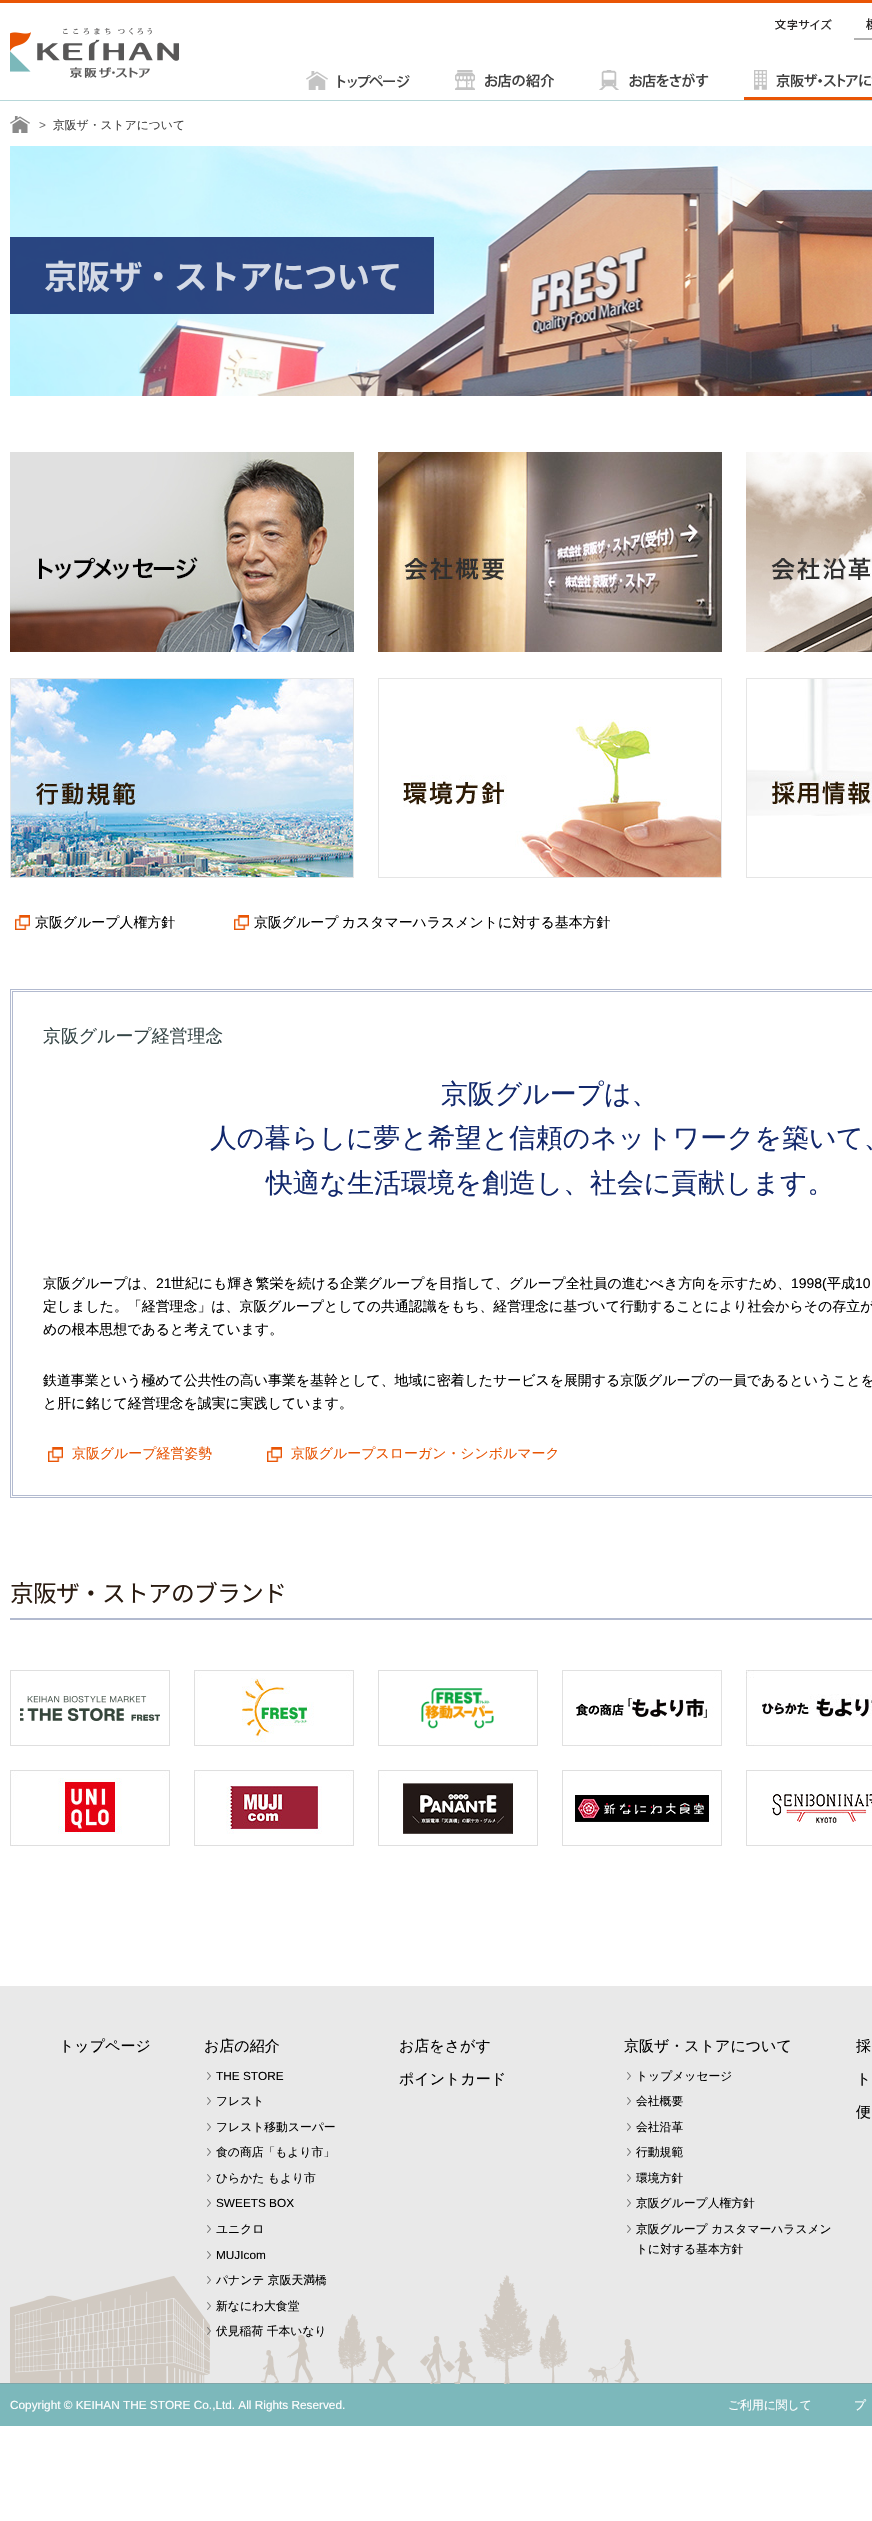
void draw(SkCanvas* canvas) {
	SkPaint paint;
	paint.setAntiAlias(true);
	auto spacedText = [&](const char* s, float x, float y, const SkFont& font, const SkPaint& ink, float letter, float word) {
		std::vector<SkGlyphID> glyphs(font.countText(s, strlen(s), SkTextEncoding::kUTF8));
		std::vector<float> xs(glyphs.size());
		font.textToGlyphs(s, strlen(s), SkTextEncoding::kUTF8, glyphs);
		font.getXPos(glyphs, xs, x);
		float extra = 0;
		for (size_t i = 0; i < glyphs.size(); i++) {
			xs[i] += extra;
			extra += letter + word * (glyphs[i] == font.unicharToGlyph(' '));
		}
		canvas->drawTextBlob(SkTextBlob::MakeFromPosHGlyphs(glyphs, xs, y, font), 0, 0, ink);
	};
	canvas->clear(0xffffffff);
	paint.setColor(0xffe95505);
	canvas->drawRect(SkRect::MakeXYWH(0, 0, 872, 3), paint);
	paint.setColor(0xffb7d7d9);
	canvas->drawRect(SkRect::MakeXYWH(0, 100, 872, 1), paint);
	canvas->drawImageRect(SkImages::DeferredFromEncodedData(SkData::MakeFromFileName("img1.png")), SkRect::MakeXYWH(10, 28, 169, 50), SkSamplingOptions());
	canvas->drawImageRect(SkImages::DeferredFromEncodedData(SkData::MakeFromFileName("img2.png")), SkRect::MakeXYWH(775, 19, 57, 11), SkSamplingOptions());
	paint.setColor(0xffb2b2b2);
	canvas->drawRect(SkRect::MakeXYWH(854, 38, 18, 2), paint);
	canvas->drawImageRect(SkImages::DeferredFromEncodedData(SkData::MakeFromFileName("img3.png")), SkRect::MakeXYWH(866, 18, 6, 12), SkSamplingOptions());
	canvas->drawImageRect(SkImages::DeferredFromEncodedData(SkData::MakeFromFileName("img4.png")), SkRect::MakeXYWH(306, 71, 104, 19), SkSamplingOptions());
	canvas->drawImageRect(SkImages::DeferredFromEncodedData(SkData::MakeFromFileName("img5.png")), SkRect::MakeXYWH(455, 70, 99, 20), SkSamplingOptions());
	canvas->drawImageRect(SkImages::DeferredFromEncodedData(SkData::MakeFromFileName("img6.png")), SkRect::MakeXYWH(599, 70, 110, 20), SkSamplingOptions());
	canvas->drawImageRect(SkImages::DeferredFromEncodedData(SkData::MakeFromFileName("img7.png")), SkRect::MakeXYWH(754, 70, 118, 20), SkSamplingOptions());
	paint.setColor(0xffe95505);
	canvas->drawRect(SkRect::MakeXYWH(744, 97, 128, 3), paint);
	canvas->drawImageRect(SkImages::DeferredFromEncodedData(SkData::MakeFromFileName("img8.png")), SkRect::MakeXYWH(10, 116, 20, 17), SkSamplingOptions());
	SkFont f1(fontMgr->matchFamilyStyle("Liberation Sans", SkFontStyle::Normal()), 11.8);
	f1.setSubpixel(true);
	paint.setColor(0xff717071);
	canvas->drawString(">", 39, 129, f1, paint);
	SkFont f2(fontMgr->matchFamilyStyle("WenQuanYi Zen Hei", SkFontStyle(500, SkFontStyle::kNormal_Width, SkFontStyle::kUpright_Slant)), 11.8);
	f2.setSubpixel(true);
	paint.setColor(0xff424242);
	canvas->drawString("京阪ザ・ストアについて", 53, 129, f2, paint);
	canvas->drawImageRect(SkImages::DeferredFromEncodedData(SkData::MakeFromFileName("img9.png")), SkRect::MakeXYWH(10, 146, 862, 250), SkSamplingOptions());
	paint.setColor(0xcc011961);
	canvas->drawRect(SkRect::MakeXYWH(10, 237, 424, 77), paint);
	SkFont f3(fontMgr->matchFamilyStyle("Noto Sans JP", SkFontStyle::Bold()), 33.5);
	f3.setSubpixel(true);
	paint.setColor(0xffd4dae6);
	spacedText("京阪ザ・ストアについて", 44, 289, f3, paint, -1, 0);
	canvas->drawImageRect(SkImages::DeferredFromEncodedData(SkData::MakeFromFileName("img10.png")), SkRect::MakeXYWH(10, 452, 344, 200), SkSamplingOptions());
	canvas->drawImageRect(SkImages::DeferredFromEncodedData(SkData::MakeFromFileName("img11.png")), SkRect::MakeXYWH(378, 452, 344, 200), SkSamplingOptions());
	canvas->drawImageRect(SkImages::DeferredFromEncodedData(SkData::MakeFromFileName("img12.png")), SkRect::MakeXYWH(746, 452, 126, 200), SkSamplingOptions());
	paint.setStroke(true);
	paint.setStrokeWidth(1);
	paint.setColor(0xffe5e5e5);
	canvas->drawRect(SkRect::MakeXYWH(10.5, 678.5, 343, 199), paint);
	canvas->drawImageRect(SkImages::DeferredFromEncodedData(SkData::MakeFromFileName("img13.png")), SkRect::MakeXYWH(11, 679, 342, 198), SkSamplingOptions());
	canvas->drawRect(SkRect::MakeXYWH(378.5, 678.5, 343, 199), paint);
	canvas->drawImageRect(SkImages::DeferredFromEncodedData(SkData::MakeFromFileName("img14.png")), SkRect::MakeXYWH(403, 719, 318, 158), SkSamplingOptions());
	canvas->drawRect(SkRect::MakeXYWH(746.5, 678.5, 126, 199), paint);
	canvas->drawImageRect(SkImages::DeferredFromEncodedData(SkData::MakeFromFileName("img15.png")), SkRect::MakeXYWH(747, 679, 125, 137), SkSamplingOptions());
	canvas->drawImageRect(SkImages::DeferredFromEncodedData(SkData::MakeFromFileName("img16.png")), SkRect::MakeXYWH(15, 915, 15, 15), SkSamplingOptions());
	SkFont f4(fontMgr->matchFamilyStyle("WenQuanYi Zen Hei", SkFontStyle(500, SkFontStyle::kNormal_Width, SkFontStyle::kUpright_Slant)), 13.92);
	f4.setSubpixel(true);
	paint.setStroke(false);
	paint.setColor(0xff000000);
	canvas->drawString("京阪グループ人権方針", 35, 927, f4, paint);
	canvas->drawImageRect(SkImages::DeferredFromEncodedData(SkData::MakeFromFileName("img16.png")), SkRect::MakeXYWH(234, 915, 15, 15), SkSamplingOptions());
	spacedText("京阪グループ カスタマーハラスメントに対する基本方針", 254, 927, f4, paint, 0, -1);
	paint.setStroke(true);
	paint.setColor(0xffb2bacf);
	canvas->drawRect(SkRect::MakeXYWH(10.5, 989.5, 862, 508), paint);
	canvas->drawRect(SkRect::MakeXYWH(12.5, 991.5, 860, 504), paint);
	SkFont f5(fontMgr->matchFamilyStyle("WenQuanYi Zen Hei", SkFontStyle(500, SkFontStyle::kNormal_Width, SkFontStyle::kUpright_Slant)), 17.9);
	f5.setSubpixel(true);
	paint.setStroke(false);
	paint.setColor(0xff354546);
	canvas->drawString("京阪グループ経営理念", 43, 1042, f5, paint);
	SkFont f6(fontMgr->matchFamilyStyle("WenQuanYi Zen Hei", SkFontStyle(500, SkFontStyle::kNormal_Width, SkFontStyle::kUpright_Slant)), 26.85);
	f6.setSubpixel(true);
	paint.setColor(0xff12286c);
	canvas->drawString("京阪グループは、", 441, 1103, f6, paint);
	canvas->drawString("人の暮らしに夢と希望と信頼のネットワークを築いて、", 210, 1147, f6, paint);
	canvas->drawString("快適な生活環境を創造し、社会に貢献します。", 266, 1192, f6, paint);
	paint.setColor(0xff000000);
	canvas->drawString("京阪グループは、", 43, 1288, f4, paint);
	SkFont f7(fontMgr->matchFamilyStyle("Liberation Sans", SkFontStyle::Normal()), 13.92);
	f7.setSubpixel(true);
	canvas->drawString("21", 156, 1288, f7, paint);
	canvas->drawString("世紀にも輝き繁栄を続ける企業グループを目指して、グループ全社員の進むべき方向を示すため、", 171, 1288, f4, paint);
	canvas->drawString("1998(", 791, 1288, f7, paint);
	canvas->drawString("平成", 827, 1288, f4, paint);
	canvas->drawString("10", 855, 1288, f7, paint);
	canvas->drawString("定しました。「経営理念」は、京阪グループとしての共通認識をもち、経営理念に基づいて行動することにより社会からその存立が", 43, 1311, f4, paint);
	canvas->drawString("めの根本思想であると考えています。", 43, 1334, f4, paint);
	canvas->drawString("鉄道事業という極めて公共性の高い事業を基幹として、地域に密着したサービスを展開する京阪グループの一員であるということを", 43, 1385, f4, paint);
	canvas->drawString("と肝に銘じて経営理念を誠実に実践しています。", 43, 1408, f4, paint);
	canvas->drawImageRect(SkImages::DeferredFromEncodedData(SkData::MakeFromFileName("img16.png")), SkRect::MakeXYWH(48, 1447, 15, 15), SkSamplingOptions());
	paint.setColor(0xffe85403);
	canvas->drawString("京阪グループ経営姿勢", 72, 1458, f4, paint);
	canvas->drawImageRect(SkImages::DeferredFromEncodedData(SkData::MakeFromFileName("img16.png")), SkRect::MakeXYWH(267, 1447, 15, 15), SkSamplingOptions());
	canvas->drawString("京阪グループスローガン・シンボルマーク", 291, 1458, f4, paint);
	paint.setColor(0xffb2bacf);
	canvas->drawRect(SkRect::MakeXYWH(10, 1618, 862, 2), paint);
	SkFont f8(fontMgr->matchFamilyStyle("Noto Sans JP", SkFontStyle::Normal()), 23.75);
	f8.setSubpixel(true);
	paint.setColor(0xff2a1b11);
	spacedText("京阪ザ・ストアのブランド", 10, 1602, f8, paint, -0.75, 0);
	canvas->drawImageRect(SkImages::DeferredFromEncodedData(SkData::MakeFromFileName("img17.png")), SkRect::MakeXYWH(10, 1670, 160, 76), SkSamplingOptions());
	canvas->drawImageRect(SkImages::DeferredFromEncodedData(SkData::MakeFromFileName("img18.png")), SkRect::MakeXYWH(194, 1670, 160, 76), SkSamplingOptions());
	canvas->drawImageRect(SkImages::DeferredFromEncodedData(SkData::MakeFromFileName("img19.png")), SkRect::MakeXYWH(378, 1670, 160, 76), SkSamplingOptions());
	canvas->drawImageRect(SkImages::DeferredFromEncodedData(SkData::MakeFromFileName("img20.png")), SkRect::MakeXYWH(562, 1670, 160, 76), SkSamplingOptions());
	canvas->drawImageRect(SkImages::DeferredFromEncodedData(SkData::MakeFromFileName("img21.png")), SkRect::MakeXYWH(746, 1670, 126, 76), SkSamplingOptions());
	canvas->drawImageRect(SkImages::DeferredFromEncodedData(SkData::MakeFromFileName("img22.png")), SkRect::MakeXYWH(10, 1770, 160, 76), SkSamplingOptions());
	canvas->drawImageRect(SkImages::DeferredFromEncodedData(SkData::MakeFromFileName("img23.png")), SkRect::MakeXYWH(194, 1770, 160, 76), SkSamplingOptions());
	canvas->drawImageRect(SkImages::DeferredFromEncodedData(SkData::MakeFromFileName("img24.png")), SkRect::MakeXYWH(378, 1770, 160, 76), SkSamplingOptions());
	canvas->drawImageRect(SkImages::DeferredFromEncodedData(SkData::MakeFromFileName("img25.png")), SkRect::MakeXYWH(562, 1770, 160, 76), SkSamplingOptions());
	canvas->drawImageRect(SkImages::DeferredFromEncodedData(SkData::MakeFromFileName("img26.png")), SkRect::MakeXYWH(746, 1770, 126, 76), SkSamplingOptions());
	paint.setColor(0xffe9e9e9);
	canvas->drawRect(SkRect::MakeXYWH(0, 1986, 872, 397), paint);
	SkFont f9(fontMgr->matchFamilyStyle("WenQuanYi Zen Hei", SkFontStyle(500, SkFontStyle::kNormal_Width, SkFontStyle::kUpright_Slant)), 15);
	f9.setSubpixel(true);
	paint.setColor(0xff000000);
	canvas->drawString("トップページ", 59, 2051, f9, paint);
	canvas->drawString("お店の紹介", 204, 2051, f9, paint);
	canvas->drawImageRect(SkImages::DeferredFromEncodedData(SkData::MakeFromFileName("img27.png")), SkRect::MakeXYWH(207, 2072, 4, 8), SkSamplingOptions());
	canvas->drawString("THE STORE", 216, 2080, f1, paint);
	canvas->drawImageRect(SkImages::DeferredFromEncodedData(SkData::MakeFromFileName("img27.png")), SkRect::MakeXYWH(207, 2097, 4, 8), SkSamplingOptions());
	canvas->drawString("フレスト", 216, 2105, f2, paint);
	canvas->drawImageRect(SkImages::DeferredFromEncodedData(SkData::MakeFromFileName("img27.png")), SkRect::MakeXYWH(207, 2123, 4, 8), SkSamplingOptions());
	canvas->drawString("フレスト移動スーパー", 216, 2131, f2, paint);
	canvas->drawImageRect(SkImages::DeferredFromEncodedData(SkData::MakeFromFileName("img27.png")), SkRect::MakeXYWH(207, 2148, 4, 8), SkSamplingOptions());
	canvas->drawString("食の商店「もより市」", 216, 2156, f2, paint);
	canvas->drawImageRect(SkImages::DeferredFromEncodedData(SkData::MakeFromFileName("img27.png")), SkRect::MakeXYWH(207, 2174, 4, 8), SkSamplingOptions());
	canvas->drawString("ひらかた もより市", 216, 2182, f2, paint);
	canvas->drawImageRect(SkImages::DeferredFromEncodedData(SkData::MakeFromFileName("img27.png")), SkRect::MakeXYWH(207, 2199, 4, 8), SkSamplingOptions());
	canvas->drawString("SWEETS BOX", 216, 2207, f1, paint);
	canvas->drawImageRect(SkImages::DeferredFromEncodedData(SkData::MakeFromFileName("img27.png")), SkRect::MakeXYWH(207, 2225, 4, 8), SkSamplingOptions());
	canvas->drawString("ユニクロ", 216, 2233, f2, paint);
	canvas->drawImageRect(SkImages::DeferredFromEncodedData(SkData::MakeFromFileName("img27.png")), SkRect::MakeXYWH(207, 2251, 4, 8), SkSamplingOptions());
	canvas->drawString("MUJIcom", 216, 2259, f1, paint);
	paint.setColor(0xff80a6a9);
	canvas->drawRect(SkRect::MakeXYWH(0, 2383, 872, 1), paint);
	canvas->drawImageRect(SkImages::DeferredFromEncodedData(SkData::MakeFromFileName("img29.png")), SkRect::MakeXYWH(10, 2275, 629, 109), SkSamplingOptions());
	canvas->drawImageRect(SkImages::DeferredFromEncodedData(SkData::MakeFromFileName("img27.png")), SkRect::MakeXYWH(207, 2276, 4, 8), SkSamplingOptions());
	paint.setColor(0xff000000);
	canvas->drawString("パナンテ 京阪天満橋", 216, 2284, f2, paint);
	canvas->drawImageRect(SkImages::DeferredFromEncodedData(SkData::MakeFromFileName("img27.png")), SkRect::MakeXYWH(207, 2302, 4, 8), SkSamplingOptions());
	canvas->drawString("新なにわ大食堂", 216, 2310, f2, paint);
	canvas->drawImageRect(SkImages::DeferredFromEncodedData(SkData::MakeFromFileName("img28.png")), SkRect::MakeXYWH(207, 2327, 4, 8), SkSamplingOptions());
	canvas->drawString("伏見稲荷 千本いなり", 216, 2335, f2, paint);
	canvas->drawString("お店をさがす", 399, 2051, f9, paint);
	canvas->drawString("ポイントカード", 399, 2084, f9, paint);
	canvas->drawString("京阪ザ・ストアについて", 624, 2051, f9, paint);
	canvas->drawImageRect(SkImages::DeferredFromEncodedData(SkData::MakeFromFileName("img27.png")), SkRect::MakeXYWH(627, 2072, 4, 8), SkSamplingOptions());
	canvas->drawString("トップメッセージ", 636, 2080, f2, paint);
	canvas->drawImageRect(SkImages::DeferredFromEncodedData(SkData::MakeFromFileName("img27.png")), SkRect::MakeXYWH(627, 2097, 4, 8), SkSamplingOptions());
	canvas->drawString("会社概要", 636, 2105, f2, paint);
	canvas->drawImageRect(SkImages::DeferredFromEncodedData(SkData::MakeFromFileName("img27.png")), SkRect::MakeXYWH(627, 2123, 4, 8), SkSamplingOptions());
	canvas->drawString("会社沿革", 636, 2131, f2, paint);
	canvas->drawImageRect(SkImages::DeferredFromEncodedData(SkData::MakeFromFileName("img27.png")), SkRect::MakeXYWH(627, 2148, 4, 8), SkSamplingOptions());
	canvas->drawString("行動規範", 636, 2156, f2, paint);
	canvas->drawImageRect(SkImages::DeferredFromEncodedData(SkData::MakeFromFileName("img27.png")), SkRect::MakeXYWH(627, 2174, 4, 8), SkSamplingOptions());
	canvas->drawString("環境方針", 636, 2182, f2, paint);
	canvas->drawImageRect(SkImages::DeferredFromEncodedData(SkData::MakeFromFileName("img27.png")), SkRect::MakeXYWH(627, 2199, 4, 8), SkSamplingOptions());
	canvas->drawString("京阪グループ人権方針", 636, 2207, f2, paint);
	canvas->drawImageRect(SkImages::DeferredFromEncodedData(SkData::MakeFromFileName("img27.png")), SkRect::MakeXYWH(627, 2225, 4, 8), SkSamplingOptions());
	canvas->drawString("京阪グループ カスタマーハラスメン", 636, 2233, f2, paint);
	canvas->drawString("トに対する基本方針", 636, 2253, f2, paint);
	canvas->drawString("採", 856, 2051, f9, paint);
	canvas->drawString("ト", 856, 2084, f9, paint);
	canvas->drawString("便", 856, 2117, f9, paint);
	paint.setColor(0xff7cb8bb);
	canvas->drawRect(SkRect::MakeXYWH(0, 2384, 872, 42), paint);
	paint.setColor(0xffffffff);
	canvas->drawString("Copyright © KEIHAN THE STORE Co.,Ltd. All Rights Reserved.", 10, 2409, f1, paint);
	canvas->drawString("ご利用に関して", 728, 2409, f2, paint);
	canvas->drawString("プ", 854, 2409, f2, paint);
}
